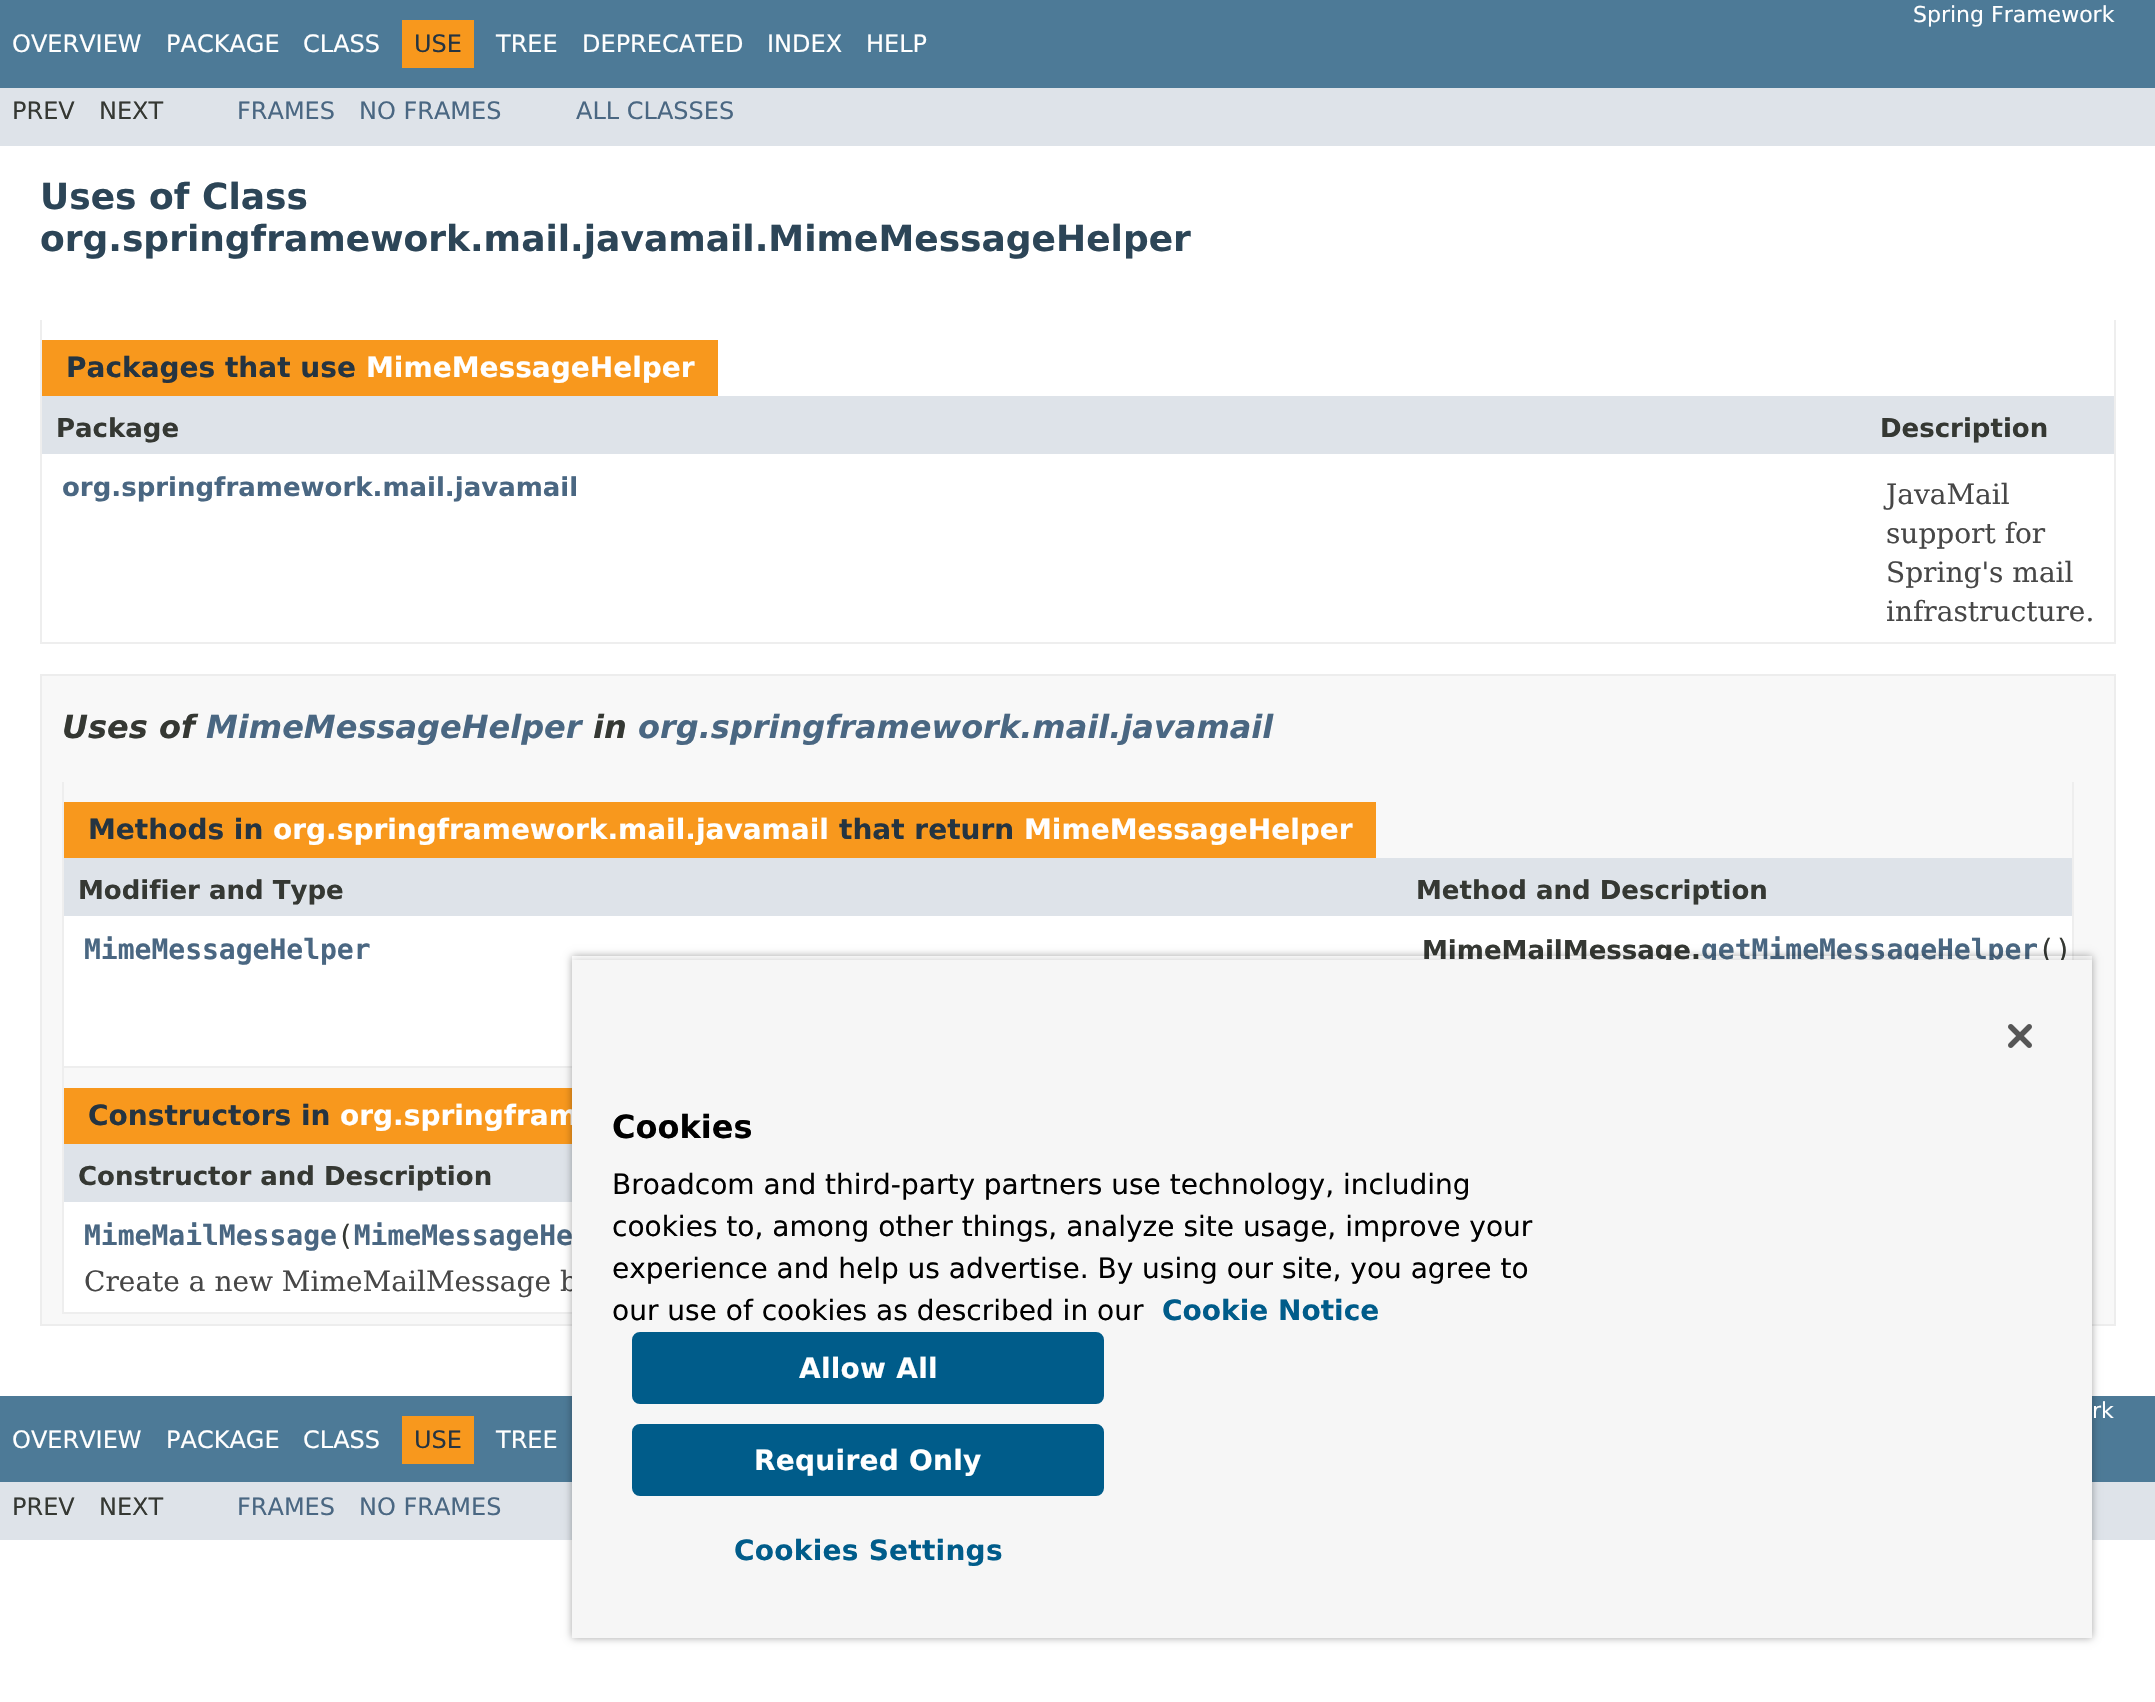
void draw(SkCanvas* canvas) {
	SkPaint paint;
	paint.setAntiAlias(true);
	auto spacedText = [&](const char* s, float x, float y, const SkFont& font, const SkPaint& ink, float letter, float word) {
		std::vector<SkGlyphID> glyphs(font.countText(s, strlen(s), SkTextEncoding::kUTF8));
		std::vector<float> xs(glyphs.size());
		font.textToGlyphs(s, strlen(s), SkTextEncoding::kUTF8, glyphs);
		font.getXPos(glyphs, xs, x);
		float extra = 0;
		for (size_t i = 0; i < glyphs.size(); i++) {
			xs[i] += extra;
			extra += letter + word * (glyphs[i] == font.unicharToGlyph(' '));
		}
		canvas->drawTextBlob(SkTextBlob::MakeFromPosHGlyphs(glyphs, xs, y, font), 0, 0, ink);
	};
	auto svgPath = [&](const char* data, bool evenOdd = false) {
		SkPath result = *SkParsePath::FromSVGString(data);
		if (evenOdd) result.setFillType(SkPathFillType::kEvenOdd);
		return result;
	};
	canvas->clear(0xffffffff);
	paint.setColor(0xff4d7a97);
	canvas->drawRect(SkRect::MakeXYWH(0, 0, 2155, 88), paint);
	SkFont f1(fontMgr->matchFamilyStyle("DejaVu Sans", SkFontStyle::Normal()), 22);
	f1.setSubpixel(true);
	paint.setColor(0xffffffff);
	canvas->drawString("Spring Framework", 1913, 22, f1, paint);
	SkFont f2(fontMgr->matchFamilyStyle("DejaVu Sans", SkFontStyle::Normal()), 24);
	f2.setSubpixel(true);
	canvas->drawString("OVERVIEW", 12, 52, f2, paint);
	canvas->drawString("PACKAGE", 166, 52, f2, paint);
	canvas->drawString("CLASS", 303, 52, f2, paint);
	paint.setColor(0xfff8981d);
	canvas->drawRect(SkRect::MakeXYWH(402, 20, 72, 48), paint);
	paint.setColor(0xff253441);
	canvas->drawString("USE", 414, 52, f2, paint);
	paint.setColor(0xffffffff);
	canvas->drawString("TREE", 496, 52, f2, paint);
	canvas->drawString("DEPRECATED", 582, 52, f2, paint);
	canvas->drawString("INDEX", 767, 52, f2, paint);
	canvas->drawString("HELP", 866, 52, f2, paint);
	paint.setColor(0xffdee3e9);
	canvas->drawRect(SkRect::MakeXYWH(0, 88, 2155, 58), paint);
	paint.setColor(0xff353833);
	canvas->drawString("PREV", 12, 119, f2, paint);
	canvas->drawString("NEXT", 99, 119, f2, paint);
	paint.setColor(0xff4a6782);
	canvas->drawString("FRAMES", 237, 119, f2, paint);
	canvas->drawString("NO FRAMES", 359, 119, f2, paint);
	canvas->drawString("ALL CLASSES", 576, 119, f2, paint);
	SkFont f3(fontMgr->matchFamilyStyle("DejaVu Sans", SkFontStyle::Bold()), 36);
	f3.setSubpixel(true);
	paint.setColor(0xff2c4557);
	canvas->drawString("Uses of Class", 40, 209, f3, paint);
	canvas->drawString("org.springframework.mail.javamail.MimeMessageHelper", 40, 251, f3, paint);
	paint.setColor(0xffeeeeee);
	canvas->drawRect(SkRect::MakeXYWH(2114, 320, 2, 324), paint);
	canvas->drawRect(SkRect::MakeXYWH(40, 642, 2076, 2), paint);
	canvas->drawRect(SkRect::MakeXYWH(40, 320, 2, 324), paint);
	paint.setColor(0xfff8981d);
	canvas->drawRect(SkRect::MakeXYWH(42, 340, 676, 56), paint);
	SkFont f4(fontMgr->matchFamilyStyle("DejaVu Sans", SkFontStyle::Bold()), 28);
	f4.setSubpixel(true);
	paint.setColor(0xff253441);
	canvas->drawString("Packages that use", 66, 377, f4, paint);
	paint.setColor(0xffffffff);
	canvas->drawString("MimeMessageHelper", 366, 377, f4, paint);
	paint.setColor(0xffdee3e9);
	canvas->drawRect(SkRect::MakeXYWH(42, 396, 2072, 58), paint);
	SkFont f5(fontMgr->matchFamilyStyle("DejaVu Sans", SkFontStyle::Bold()), 26);
	f5.setSubpixel(true);
	paint.setColor(0xff353833);
	canvas->drawString("Package", 56, 437, f5, paint);
	canvas->drawString("Description", 1880, 437, f5, paint);
	paint.setColor(0xff4a6782);
	canvas->drawString("org.springframework.mail.javamail", 62, 496, f5, paint);
	SkFont f6(fontMgr->matchFamilyStyle("DejaVu Serif", SkFontStyle::Normal()), 28);
	f6.setSubpixel(true);
	paint.setColor(0xff474747);
	canvas->drawString("JavaMail", 1886, 504, f6, paint);
	canvas->drawString("support for", 1886, 543, f6, paint);
	canvas->drawString("Spring's mail", 1886, 582, f6, paint);
	canvas->drawString("infrastructure.", 1886, 621, f6, paint);
	paint.setColor(0xfff8f8f8);
	canvas->drawRect(SkRect::MakeXYWH(41, 675, 2074, 650), paint);
	paint.setStroke(true);
	paint.setStrokeWidth(2);
	paint.setColor(0xffededed);
	canvas->drawRect(SkRect::MakeXYWH(41, 675, 2074, 650), paint);
	SkFont f7(fontMgr->matchFamilyStyle("DejaVu Sans", SkFontStyle::BoldItalic()), 32);
	f7.setSubpixel(true);
	paint.setStroke(false);
	paint.setColor(0xff353833);
	canvas->drawString("Uses of", 62, 738, f7, paint);
	paint.setColor(0xff4a6782);
	canvas->drawString("MimeMessageHelper", 206, 738, f7, paint);
	paint.setColor(0xff353833);
	canvas->drawString("in", 593, 738, f7, paint);
	paint.setColor(0xff4a6782);
	canvas->drawString("org.springframework.mail.javamail", 638, 738, f7, paint);
	paint.setColor(0xffeeeeee);
	canvas->drawRect(SkRect::MakeXYWH(2072, 782, 2, 178), paint);
	canvas->drawRect(SkRect::MakeXYWH(62, 1066, 510, 2), paint);
	canvas->drawRect(SkRect::MakeXYWH(62, 782, 2, 286), paint);
	paint.setColor(0xfff8981d);
	canvas->drawRect(SkRect::MakeXYWH(64, 802, 1312, 56), paint);
	paint.setColor(0xff253441);
	canvas->drawString("Methods in", 88, 839, f4, paint);
	paint.setColor(0xffffffff);
	canvas->drawString("org.springframework.mail.javamail", 273, 839, f4, paint);
	paint.setColor(0xff253441);
	canvas->drawString("that return", 839, 839, f4, paint);
	paint.setColor(0xffffffff);
	canvas->drawString("MimeMessageHelper", 1024, 839, f4, paint);
	paint.setColor(0xffdee3e9);
	canvas->drawRect(SkRect::MakeXYWH(64, 858, 2008, 58), paint);
	paint.setColor(0xff353833);
	canvas->drawString("Modifier and Type", 78, 899, f5, paint);
	canvas->drawString("Method and Description", 1416, 899, f5, paint);
	paint.setColor(0xffffffff);
	canvas->drawRect(SkRect::MakeXYWH(64, 916, 2008, 150), paint);
	SkFont f8(fontMgr->matchFamilyStyle("DejaVu Sans Mono", SkFontStyle::Bold()), 28);
	f8.setSubpixel(true);
	paint.setColor(0xff4a6782);
	canvas->drawString("MimeMessageHelper", 84, 959, f8, paint);
	paint.setColor(0xff353833);
	canvas->drawString("MimeMailMessage.", 1422, 959, f5, paint);
	paint.setColor(0xff4a6782);
	canvas->drawString("getMimeMessageHelper", 1701, 959, f8, paint);
	SkFont f9(fontMgr->matchFamilyStyle("DejaVu Sans Mono", SkFontStyle::Normal()), 28);
	f9.setSubpixel(true);
	paint.setColor(0xff353833);
	canvas->drawString("()", 2038, 959, f9, paint);
	paint.setColor(0xffeeeeee);
	canvas->drawRect(SkRect::MakeXYWH(62, 1312, 510, 2), paint);
	canvas->drawRect(SkRect::MakeXYWH(62, 1068, 2, 246), paint);
	paint.setColor(0xfff8981d);
	canvas->drawRect(SkRect::MakeXYWH(64, 1088, 508, 56), paint);
	paint.setColor(0xff253441);
	canvas->drawString("Constructors in", 88, 1125, f4, paint);
	paint.setColor(0xffffffff);
	canvas->drawString("org.springfram", 340, 1125, f4, paint);
	paint.setColor(0xffdee3e9);
	canvas->drawRect(SkRect::MakeXYWH(64, 1144, 508, 58), paint);
	paint.setColor(0xff353833);
	canvas->drawString("Constructor and Description", 78, 1185, f5, paint);
	paint.setColor(0xffffffff);
	canvas->drawRect(SkRect::MakeXYWH(64, 1202, 508, 110), paint);
	paint.setColor(0xff4a6782);
	canvas->drawString("MimeMailMessage MimeMessageHe", 84, 1245, f8, paint);
	paint.setColor(0xff353833);
	canvas->drawString("(", 337, 1245, f9, paint);
	paint.setColor(0xff474747);
	canvas->drawString("Create a new MimeMailMessage b", 84, 1291, f6, paint);
	paint.setColor(0xff4d7a97);
	canvas->drawRect(SkRect::MakeXYWH(0, 1396, 2155, 86), paint);
	paint.setColor(0xffdee3e9);
	canvas->drawRect(SkRect::MakeXYWH(0, 1482, 2155, 58), paint);
	canvas->save();
	canvas->clipPath(svgPath("M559 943H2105V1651H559ZM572 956H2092V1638H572Z", true), true);
	paint.setColor(0x59000000);
	paint.setMaskFilter(SkMaskFilter::MakeBlur(kNormal_SkBlurStyle, 4));
	canvas->drawRect(SkRect::MakeXYWH(572, 956, 1520, 682), paint);
	paint.setMaskFilter(nullptr);
	canvas->restore();
	canvas->save();
	canvas->clipRect(SkRect::MakeXYWH(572, 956, 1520, 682));
	paint.setColor(0x33000000);
	paint.setMaskFilter(SkMaskFilter::MakeBlur(kNormal_SkBlurStyle, 4));
	canvas->drawRect(SkRect::MakeXYWH(572, 960, 1520, 678), paint);
	paint.setMaskFilter(nullptr);
	canvas->restore();
	paint.setColor(0xfff6f6f6);
	canvas->drawRect(SkRect::MakeXYWH(572, 960, 1520, 678), paint);
	canvas->drawImageRect(SkImages::DeferredFromEncodedData(SkData::MakeFromFileName("img1.png")), SkRect::MakeXYWH(2008, 1024, 24, 24), SkSamplingOptions());
	SkFont f10(fontMgr->matchFamilyStyle("DejaVu Sans", SkFontStyle::Bold()), 32);
	f10.setSubpixel(true);
	paint.setColor(0xff000000);
	canvas->drawString("Cookies", 612, 1138, f10, paint);
	SkFont f11(fontMgr->matchFamilyStyle("DejaVu Sans", SkFontStyle::Normal()), 28);
	f11.setSubpixel(true);
	canvas->drawString("Broadcom and third-party partners use technology, including", 612, 1194, f11, paint);
	canvas->drawString("cookies to, among other things, analyze site usage, improve your", 612, 1236, f11, paint);
	canvas->drawString("experience and help us advertise. By using our site, you agree to", 612, 1278, f11, paint);
	canvas->drawString("our use of cookies as described in our", 612, 1320, f11, paint);
	paint.setColor(0xff005c8a);
	canvas->drawString("Cookie Notice", 1162, 1320, f4, paint);
	canvas->drawRoundRect(SkRect::MakeXYWH(633, 1333, 470, 70), 7, 7, paint);
	paint.setStroke(true);
	canvas->drawRoundRect(SkRect::MakeXYWH(633, 1333, 470, 70), 7, 7, paint);
	paint.setStroke(false);
	paint.setColor(0xffffffff);
	spacedText("Allow All", 799, 1378, f4, paint, 0.25, 0);
	paint.setColor(0xff005c8a);
	canvas->drawRoundRect(SkRect::MakeXYWH(633, 1425, 470, 70), 7, 7, paint);
	paint.setStroke(true);
	canvas->drawRoundRect(SkRect::MakeXYWH(633, 1425, 470, 70), 7, 7, paint);
	paint.setStroke(false);
	paint.setColor(0xffffffff);
	spacedText("Required Only", 754, 1470, f4, paint, 0.25, 0);
	paint.setColor(0xff005c8a);
	spacedText("Cookies Settings", 734, 1560, f4, paint, 0.25, 0);
	paint.setColor(0xffffffff);
	canvas->drawString("rk", 2092, 1418, f1, paint);
	canvas->drawString("OVERVIEW", 12, 1448, f2, paint);
	canvas->drawString("PACKAGE", 166, 1448, f2, paint);
	canvas->drawString("CLASS", 303, 1448, f2, paint);
	paint.setColor(0xfff8981d);
	canvas->drawRect(SkRect::MakeXYWH(402, 1416, 72, 48), paint);
	paint.setColor(0xff253441);
	canvas->drawString("USE", 414, 1448, f2, paint);
	paint.setColor(0xffffffff);
	canvas->drawString("TREE", 496, 1448, f2, paint);
	paint.setColor(0xff353833);
	canvas->drawString("PREV", 12, 1515, f2, paint);
	canvas->drawString("NEXT", 99, 1515, f2, paint);
	paint.setColor(0xff4a6782);
	canvas->drawString("FRAMES", 237, 1515, f2, paint);
	canvas->drawString("NO FRAMES", 359, 1515, f2, paint);
}
